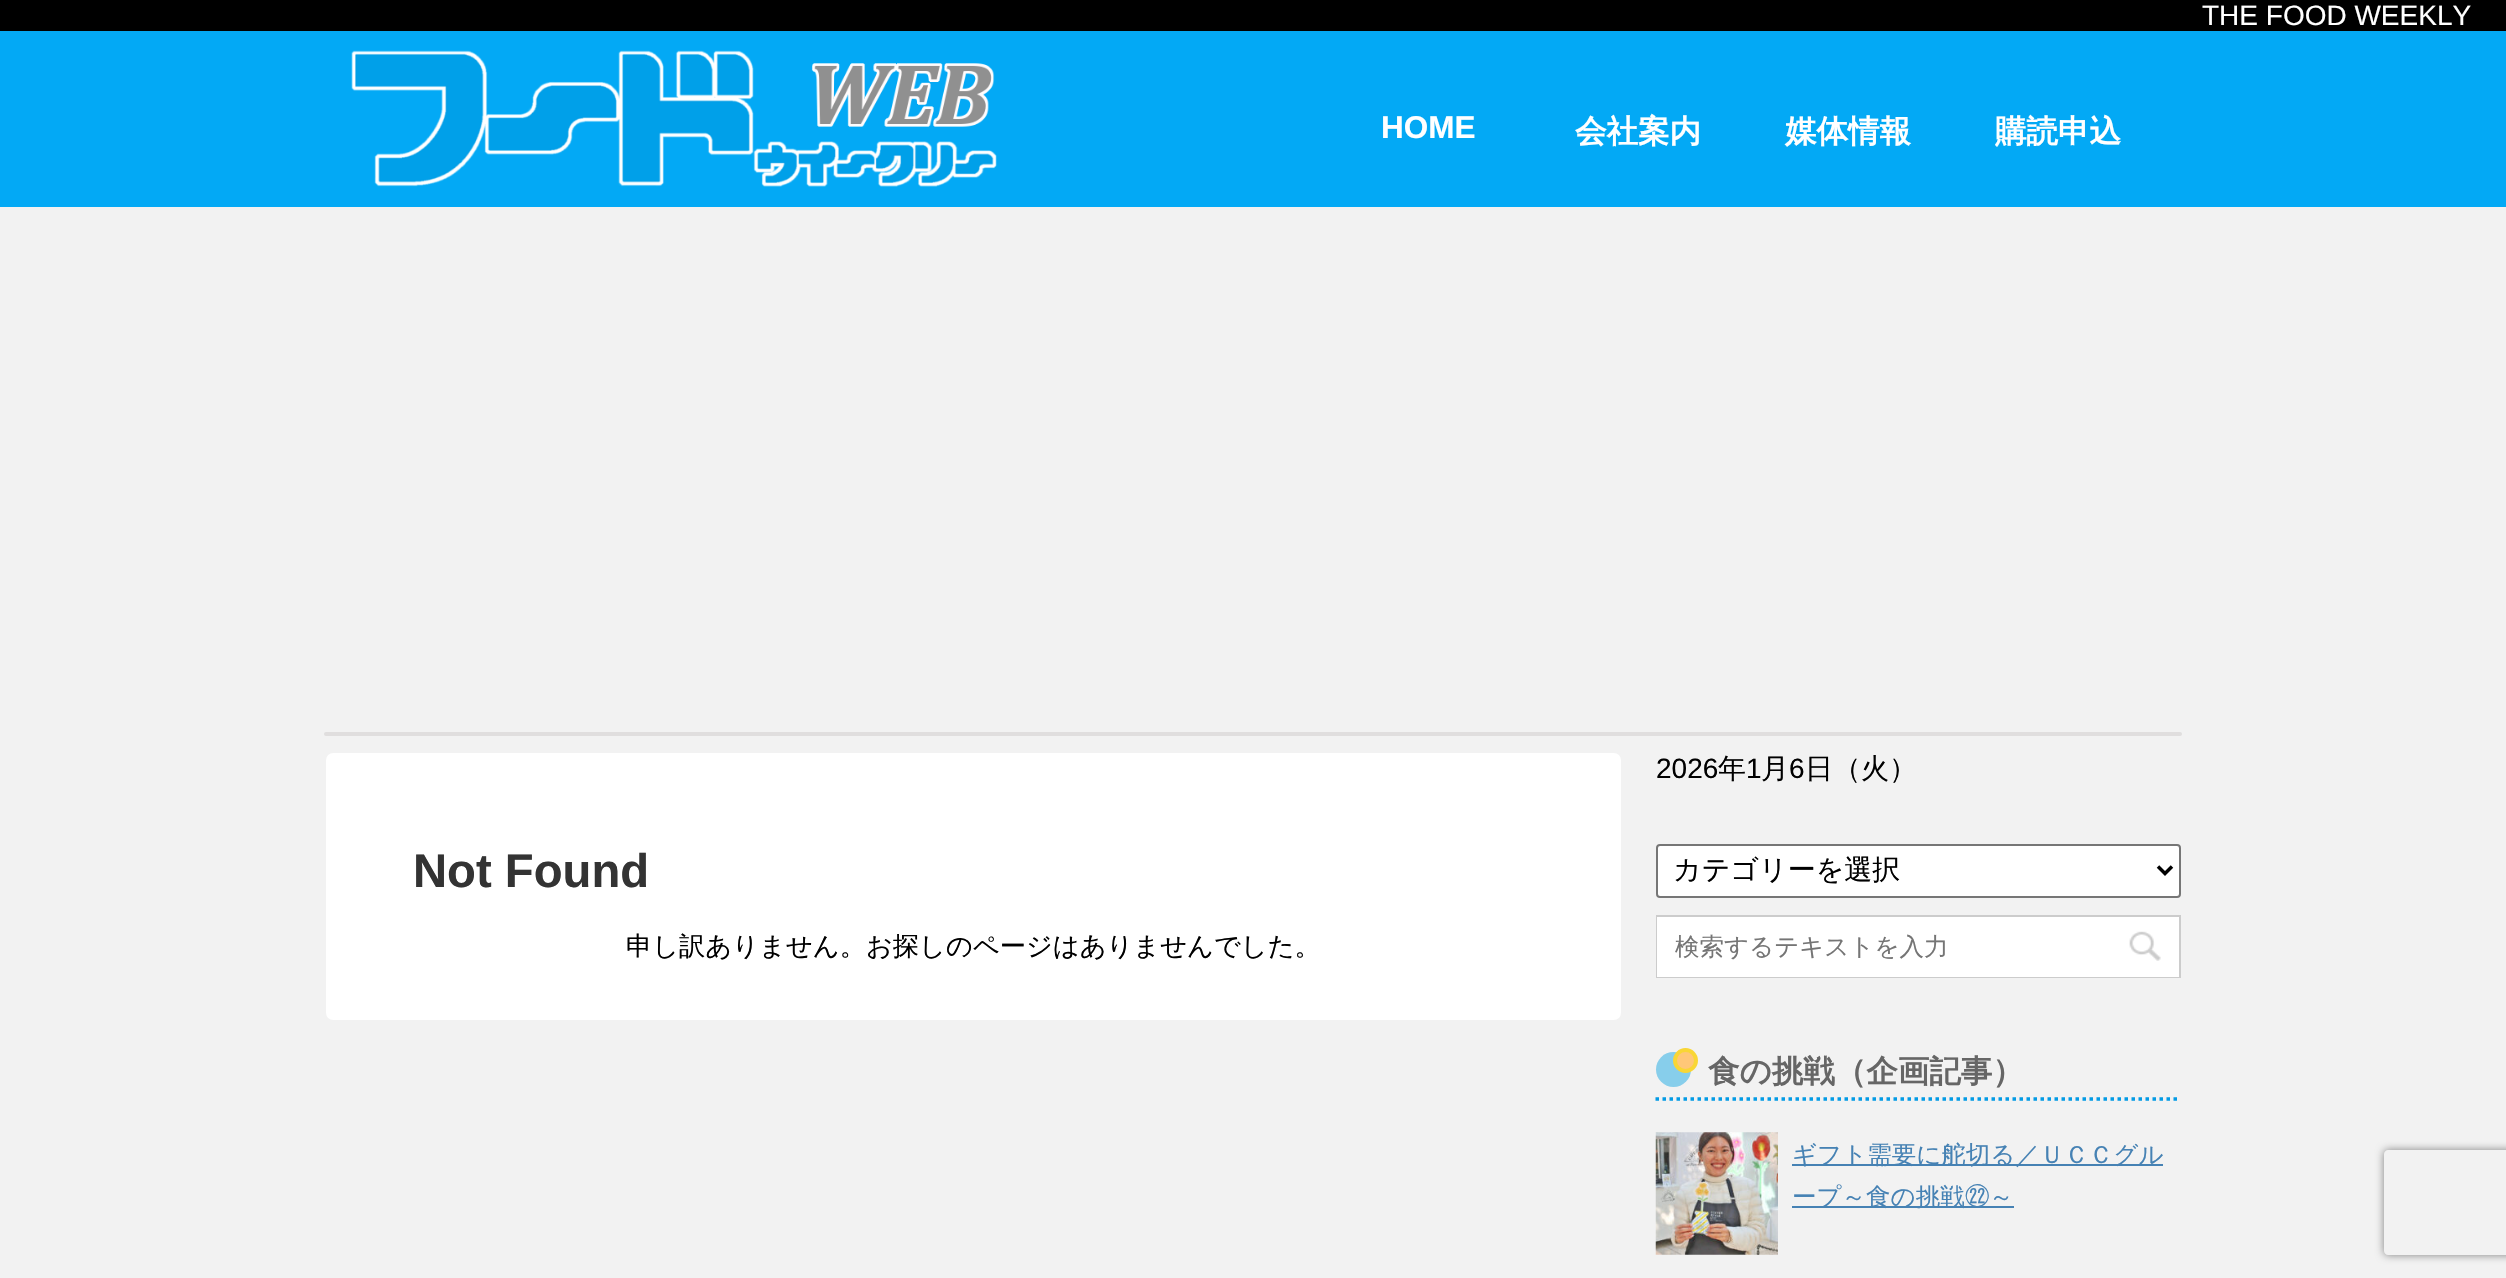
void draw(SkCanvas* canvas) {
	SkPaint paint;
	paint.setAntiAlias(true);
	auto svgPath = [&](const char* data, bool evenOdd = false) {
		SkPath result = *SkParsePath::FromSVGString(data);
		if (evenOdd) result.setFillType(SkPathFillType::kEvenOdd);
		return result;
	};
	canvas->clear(0xfff2f2f2);
	paint.setColor(0xff000000);
	canvas->drawRect(SkRect::MakeXYWH(0, 0, 2506, 31), paint);
	SkFont f1(fontMgr->matchFamilyStyle("Liberation Sans", SkFontStyle::Normal()), 28);
	f1.setSubpixel(true);
	paint.setColor(0xffffffff);
	canvas->drawString("THE FOOD WEEKLY", 2202, 25, f1, paint);
	paint.setColor(0xff03a9f5);
	canvas->drawRect(SkRect::MakeXYWH(0, 31, 2506, 176), paint);
	canvas->drawImageRect(SkImages::DeferredFromEncodedData(SkData::MakeFromFileName("img1.png")), SkRect::MakeXYWH(351, 50, 646, 137), SkSamplingOptions());
	SkFont f2(fontMgr->matchFamilyStyle("Liberation Sans", SkFontStyle::Bold()), 31.5);
	f2.setSubpixel(true);
	paint.setColor(0xffffffff);
	canvas->drawString("HOME", 1381, 138, f2, paint);
	SkFont f3(fontMgr->matchFamilyStyle("WenQuanYi Zen Hei", SkFontStyle::Bold()), 31.5);
	f3.setSubpixel(true);
	canvas->drawString("会社案内", 1575, 142, f3, paint);
	canvas->drawString("媒体情報", 1785, 142, f3, paint);
	canvas->drawString("購読申込", 1995, 142, f3, paint);
	paint.setColor(0xffe0dede);
	canvas->drawRoundRect(SkRect::MakeXYWH(324, 732, 1858, 4), 2, 2, paint);
	paint.setColor(0xffffffff);
	canvas->drawRoundRect(SkRect::MakeXYWH(326, 753, 1295, 267), 7, 7, paint);
	SkFont f4(fontMgr->matchFamilyStyle("Liberation Sans", SkFontStyle::Bold()), 47.25);
	f4.setSubpixel(true);
	paint.setColor(0xff333333);
	canvas->drawString("Not Found", 413, 887, f4, paint);
	SkFont f5(fontMgr->matchFamilyStyle("WenQuanYi Zen Hei", SkFontStyle(500, SkFontStyle::kNormal_Width, SkFontStyle::kUpright_Slant)), 26.25);
	f5.setSubpixel(true);
	paint.setColor(0xff000000);
	canvas->drawString("申し訳ありません。お探しのページはありませんでした。", 626, 955, f5, paint);
	canvas->drawString("2026", 1656, 778, f1, paint);
	SkFont f6(fontMgr->matchFamilyStyle("WenQuanYi Zen Hei", SkFontStyle(500, SkFontStyle::kNormal_Width, SkFontStyle::kUpright_Slant)), 28);
	f6.setSubpixel(true);
	canvas->drawString("年", 1718, 778, f6, paint);
	canvas->drawString("1", 1746, 778, f1, paint);
	canvas->drawString("月", 1761, 778, f6, paint);
	canvas->drawString("6", 1789, 778, f1, paint);
	canvas->drawString("日（火）", 1805, 778, f6, paint);
	paint.setColor(0xffffffff);
	canvas->drawRoundRect(SkRect::MakeXYWH(1657, 845, 523, 52), 3, 3, paint);
	paint.setStroke(true);
	paint.setStrokeWidth(2);
	paint.setColor(0xff767676);
	canvas->drawRoundRect(SkRect::MakeXYWH(1657, 845, 523, 52), 3, 3, paint);
	paint.setStrokeWidth(3.5);
	paint.setColor(0xff000000);
	canvas->drawPath(svgPath("M2158 866.5L2165 873.5L2172 866.5"), paint);
	paint.setStroke(false);
	canvas->drawString("カテゴリーを選択", 1673, 879, f6, paint);
	paint.setStroke(true);
	paint.setStrokeWidth(2);
	paint.setColor(0xffcccccc);
	canvas->drawRect(SkRect::MakeXYWH(1657, 916, 523, 61), paint);
	paint.setStroke(false);
	paint.setColor(0xffffffff);
	canvas->drawRect(SkRect::MakeXYWH(1657, 917, 522, 60), paint);
	SkFont f7(fontMgr->matchFamilyStyle("WenQuanYi Zen Hei", SkFontStyle(500, SkFontStyle::kNormal_Width, SkFontStyle::kUpright_Slant)), 24.5);
	f7.setSubpixel(true);
	paint.setColor(0xff757575);
	canvas->drawString("検索するテキストを入力", 1675, 955, f7, paint);
	canvas->drawImageRect(SkImages::DeferredFromEncodedData(SkData::MakeFromFileName("img2.png")), SkRect::MakeXYWH(2129, 931, 32, 30), SkSamplingOptions());
	paint.setStroke(true);
	paint.setStrokeWidth(3.5);
	paint.setColor(0xff039be5);
	paint.setPathEffect(SkDashPathEffect::Make({{3.5f, 3.5f}}, 0));
	canvas->drawPath(svgPath("M1655.5 1099H2180.5"), paint);
	paint.setPathEffect(nullptr);
	paint.setStroke(false);
	paint.setColor(0xff87ceeb);
	canvas->drawCircle(1673.5, 1069.5, 17.5, paint);
	paint.setColor(0xffffc778);
	canvas->drawCircle(1685.5, 1060.5, 10.5, paint);
	paint.setStroke(true);
	paint.setStrokeWidth(4);
	paint.setColor(0xfff9d635);
	canvas->drawCircle(1685.5, 1060.5, 10.5, paint);
	paint.setStroke(false);
	paint.setColor(0xff666666);
	canvas->drawString("食の挑戦（企画記事）", 1708, 1082, f3, paint);
	canvas->drawImageRect(SkImages::DeferredFromEncodedData(SkData::MakeFromFileName("img3.png")), SkRect::MakeXYWH(1655, 1132, 123, 123), SkSamplingOptions());
	paint.setColor(0xff4682b4);
	canvas->drawRect(SkRect::MakeXYWH(1792, 1164, 371, 2), paint);
	canvas->drawString("ギフト需要に舵切る／ＵＣＣグル", 1792, 1163, f7, paint);
	canvas->drawRect(SkRect::MakeXYWH(1792, 1206, 222, 2), paint);
	canvas->drawString("ープ～食の挑戦", 1792, 1205, f7, paint);
	SkFont f8(fontMgr->matchFamilyStyle("IPAPGothic", SkFontStyle::Normal()), 24.5);
	f8.setSubpixel(true);
	canvas->drawString("㉒", 1965, 1205, f8, paint);
	canvas->drawString("～", 1989, 1205, f7, paint);
	canvas->save();
	canvas->clipPath(svgPath("M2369 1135H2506V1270H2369ZM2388 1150H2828C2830 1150 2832 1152 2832 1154V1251C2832 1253 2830 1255 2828 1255H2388C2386 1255 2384 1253 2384 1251V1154C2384 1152 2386 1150 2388 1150Z", true), true);
	paint.setColor(0xff808080);
	paint.setMaskFilter(SkMaskFilter::MakeBlur(kNormal_SkBlurStyle, 4.5));
	canvas->drawRoundRect(SkRect::MakeXYWH(2384, 1150, 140, 105), 4, 4, paint);
	paint.setMaskFilter(nullptr);
	canvas->restore();
}
